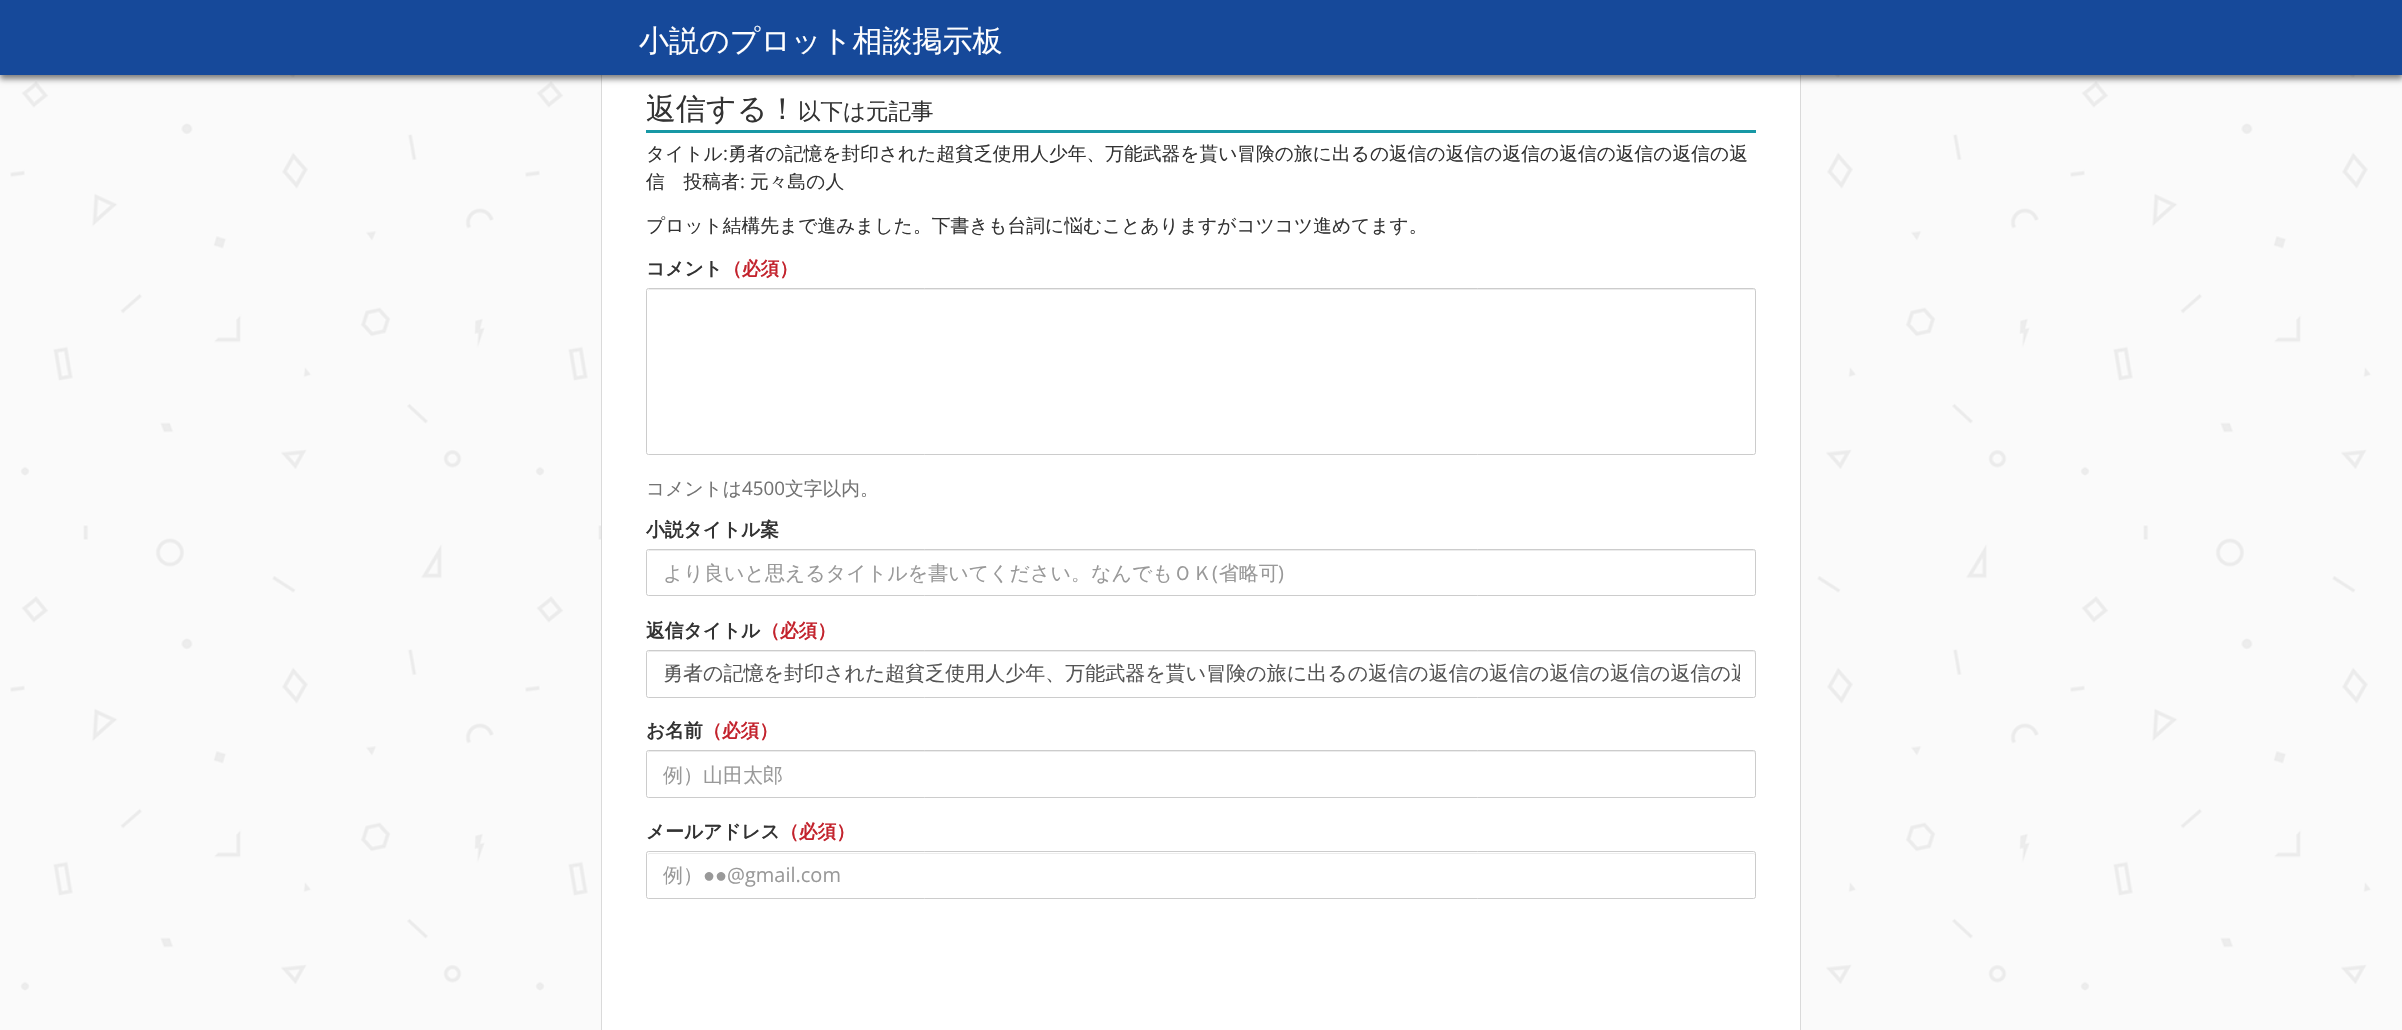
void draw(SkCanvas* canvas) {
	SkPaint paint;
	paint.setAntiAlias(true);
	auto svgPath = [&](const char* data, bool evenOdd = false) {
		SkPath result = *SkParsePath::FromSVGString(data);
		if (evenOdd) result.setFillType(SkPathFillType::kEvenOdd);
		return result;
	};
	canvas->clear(0xffffffff);
	canvas->drawImageRect(SkImages::DeferredFromEncodedData(SkData::MakeFromFileName("img1.png")), SkRect::MakeXYWH(0, 75, 2402, 955), SkSamplingOptions());
	paint.setColor(0xffffffff);
	canvas->drawRect(SkRect::MakeXYWH(602, 75, 1198, 955), paint);
	paint.setColor(0xffdadada);
	canvas->drawRect(SkRect::MakeXYWH(1800, 75, 1, 955), paint);
	canvas->drawRect(SkRect::MakeXYWH(601, 75, 1, 955), paint);
	paint.setColor(0x80000000);
	paint.setMaskFilter(SkMaskFilter::MakeBlur(kNormal_SkBlurStyle, 3));
	canvas->drawRect(SkRect::MakeXYWH(0, 4, 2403, 75), paint);
	paint.setMaskFilter(nullptr);
	paint.setColor(0xff16499a);
	canvas->drawRect(SkRect::MakeXYWH(0, 0, 2402, 75), paint);
	SkFont f1(fontMgr->matchFamilyStyle("WenQuanYi Zen Hei", SkFontStyle(500, SkFontStyle::kNormal_Width, SkFontStyle::kUpright_Slant)), 30);
	f1.setSubpixel(true);
	paint.setColor(0xffffffff);
	canvas->drawString("小説のプロット相談掲示板", 639, 51, f1, paint);
	paint.setColor(0xff1798a5);
	canvas->drawRect(SkRect::MakeXYWH(646, 130, 1110, 3), paint);
	paint.setColor(0xff333333);
	canvas->drawString("返信する！", 646, 119, f1, paint);
	SkFont f2(fontMgr->matchFamilyStyle("WenQuanYi Zen Hei", SkFontStyle(500, SkFontStyle::kNormal_Width, SkFontStyle::kUpright_Slant)), 22.5);
	f2.setSubpixel(true);
	canvas->drawString("以下は元記事", 798, 119, f2, paint);
	SkFont f3(fontMgr->matchFamilyStyle("WenQuanYi Zen Hei", SkFontStyle(500, SkFontStyle::kNormal_Width, SkFontStyle::kUpright_Slant)), 18.75);
	f3.setSubpixel(true);
	canvas->drawString("タイトル", 646, 160, f3, paint);
	SkFont f4(fontMgr->matchFamilyStyle("Open Sans", SkFontStyle::Normal()), 18.75);
	f4.setSubpixel(true);
	canvas->drawString(":", 723, 160, f4, paint);
	canvas->drawString("勇者の記憶を封印された超貧乏使用人少年、万能武器を貰い冒険の旅に出るの返信の返信の返信の返信の返信の返信の返", 728, 160, f3, paint);
	canvas->drawString("信　投稿者", 646, 188, f3, paint);
	canvas->drawString(":", 740, 188, f4, paint);
	canvas->drawString("元々島の人", 750, 188, f3, paint);
	canvas->drawString("プロット結構先まで進みました。下書きも台詞に悩むことありますがコツコツ進めてます。", 646, 232, f3, paint);
	SkFont f5(fontMgr->matchFamilyStyle("WenQuanYi Zen Hei", SkFontStyle::Bold()), 18.75);
	f5.setSubpixel(true);
	canvas->drawString("コメント", 646, 275, f5, paint);
	paint.setColor(0xffc3232d);
	canvas->drawString("（必須）", 723, 275, f5, paint);
	paint.setColor(0xffececec);
	canvas->drawPath(svgPath("M649 290H1754L1755 291V290L1754 289H649L648 290V291Z"), paint);
	paint.setStroke(true);
	paint.setStrokeWidth(1);
	paint.setColor(0xffcccccc);
	canvas->drawRoundRect(SkRect::MakeXYWH(646.5, 288.5, 1109, 166), 2, 2, paint);
	paint.setStroke(false);
	paint.setColor(0xff737373);
	canvas->drawString("コメントは", 646, 495, f3, paint);
	canvas->drawString("4500", 742, 495, f4, paint);
	canvas->drawString("文字以内。", 785, 495, f3, paint);
	paint.setColor(0xff333333);
	canvas->drawString("小説タイトル案", 646, 536, f5, paint);
	paint.setColor(0xffececec);
	canvas->drawPath(svgPath("M649 551H1754L1755 552V551L1754 550H649L648 551V552Z"), paint);
	paint.setStroke(true);
	paint.setColor(0xffcccccc);
	canvas->drawRoundRect(SkRect::MakeXYWH(646.5, 549.5, 1109, 46), 2, 2, paint);
	SkFont f6(fontMgr->matchFamilyStyle("WenQuanYi Zen Hei", SkFontStyle(500, SkFontStyle::kNormal_Width, SkFontStyle::kUpright_Slant)), 20);
	f6.setSubpixel(true);
	paint.setStroke(false);
	paint.setColor(0xff999999);
	canvas->drawString("より良いと思えるタイトルを書いてください。なんでもＯＫ 省略可", 663, 580, f6, paint);
	SkFont f7(fontMgr->matchFamilyStyle("Open Sans", SkFontStyle::Normal()), 20);
	f7.setSubpixel(true);
	canvas->drawString("(", 1212, 580, f7, paint);
	canvas->drawString(")", 1278, 580, f7, paint);
	paint.setColor(0xff333333);
	canvas->drawString("返信タイトル", 646, 637, f5, paint);
	paint.setColor(0xffc3232d);
	canvas->drawString("（必須）", 761, 637, f5, paint);
	paint.setColor(0xffececec);
	canvas->drawPath(svgPath("M649 652H1754L1755 654V652L1754 651H649C648 651 648 652 648 653Z"), paint);
	paint.setStroke(true);
	paint.setColor(0xffcccccc);
	canvas->drawRoundRect(SkRect::MakeXYWH(646.5, 650.5, 1109, 47), 2, 2, paint);
	canvas->save();
	canvas->clipRect(SkRect::MakeXYWH(663, 659, 1077, 29));
	paint.setStroke(false);
	paint.setColor(0xff555555);
	canvas->drawString("勇者の記憶を封印された超貧乏使用人少年、万能武器を貰い冒険の旅に出るの返信の返信の返信の返信の返信の返信の返", 663, 680, f6, paint);
	canvas->restore();
	paint.setColor(0xff333333);
	canvas->drawString("お名前", 646, 737, f5, paint);
	paint.setColor(0xffc3232d);
	canvas->drawString("（必須）", 703, 737, f5, paint);
	paint.setColor(0xffececec);
	canvas->drawPath(svgPath("M649 752H1754L1755 754V752L1754 751H649C648 751 648 752 648 753Z"), paint);
	paint.setStroke(true);
	paint.setColor(0xffcccccc);
	canvas->drawRoundRect(SkRect::MakeXYWH(646.5, 750.5, 1109, 47), 2, 2, paint);
	paint.setStroke(false);
	paint.setColor(0xff999999);
	canvas->drawString("例）山田太郎", 663, 782, f6, paint);
	paint.setColor(0xff333333);
	canvas->drawString("メールアドレス", 646, 838, f5, paint);
	paint.setColor(0xffc3232d);
	canvas->drawString("（必須）", 780, 838, f5, paint);
	paint.setColor(0xffececec);
	canvas->drawPath(svgPath("M649 854H1754L1755 855V854L1754 853H649L648 854V855Z"), paint);
	paint.setStroke(true);
	paint.setColor(0xffcccccc);
	canvas->drawRoundRect(SkRect::MakeXYWH(646.5, 851.5, 1109, 47), 2, 2, paint);
	paint.setStroke(false);
	paint.setColor(0xff999999);
	canvas->drawString("例）", 663, 882, f6, paint);
	SkFont f8(fontMgr->matchFamilyStyle("Liberation Sans", SkFontStyle::Normal()), 20);
	f8.setSubpixel(true);
	canvas->drawString("●●", 703, 882, f8, paint);
	canvas->drawString("@gmail.com", 727, 882, f7, paint);
}
